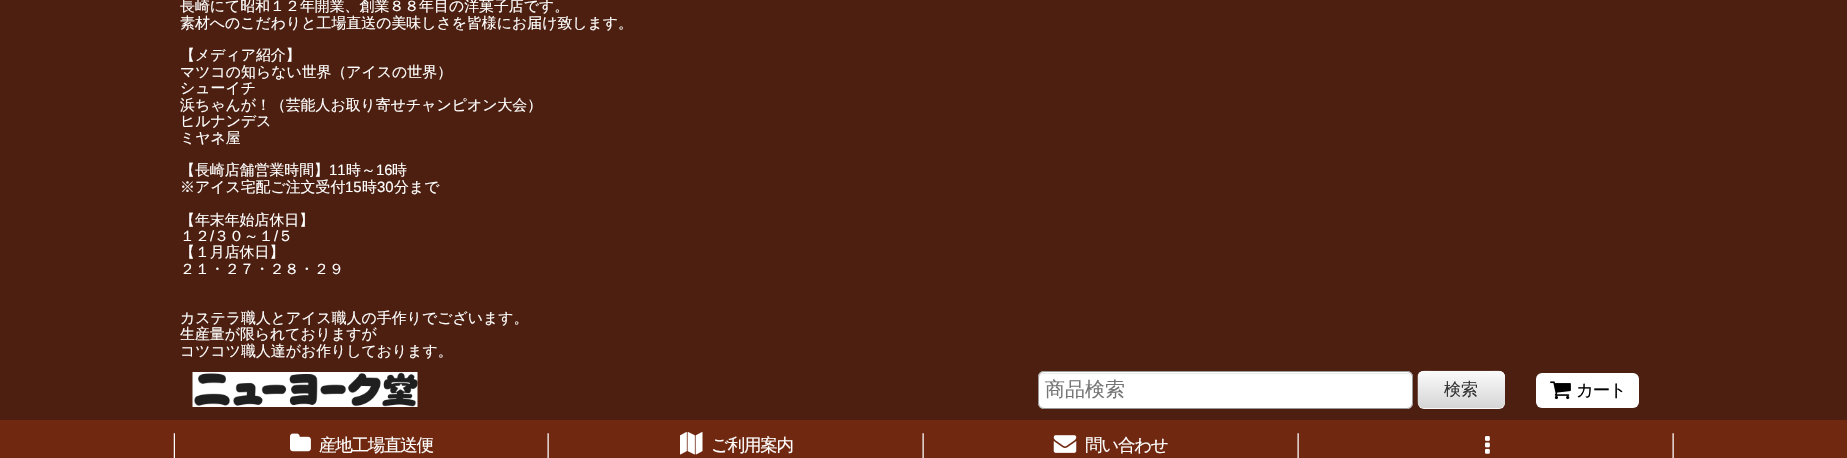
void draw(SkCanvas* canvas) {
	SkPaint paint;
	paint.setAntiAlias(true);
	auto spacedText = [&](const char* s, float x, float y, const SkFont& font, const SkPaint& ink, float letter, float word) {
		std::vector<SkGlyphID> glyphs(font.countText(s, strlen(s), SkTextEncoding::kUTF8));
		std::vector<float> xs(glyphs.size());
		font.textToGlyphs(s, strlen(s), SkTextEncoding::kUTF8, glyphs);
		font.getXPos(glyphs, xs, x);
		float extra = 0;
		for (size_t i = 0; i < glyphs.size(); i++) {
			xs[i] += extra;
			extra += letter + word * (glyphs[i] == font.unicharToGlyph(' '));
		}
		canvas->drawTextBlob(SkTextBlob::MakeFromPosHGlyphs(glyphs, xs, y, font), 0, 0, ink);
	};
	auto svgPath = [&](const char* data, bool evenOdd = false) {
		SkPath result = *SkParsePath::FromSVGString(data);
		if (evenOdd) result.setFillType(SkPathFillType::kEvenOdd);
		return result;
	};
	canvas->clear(0xff702810);
	paint.setColor(0xff4c1f10);
	canvas->drawRect(SkRect::MakeXYWH(0, 0, 1847, 420), paint);
	SkFont f1(fontMgr->matchFamilyStyle("WenQuanYi Zen Hei", SkFontStyle(500, SkFontStyle::kNormal_Width, SkFontStyle::kUpright_Slant)), 14.9);
	f1.setSubpixel(true);
	paint.setColor(0xffffffff);
	canvas->drawString("長崎にて昭和１２年開業、創業８８年目の洋菓子店です。", 180, 11, f1, paint);
	canvas->drawString("素材へのこだわりと工場直送の美味しさを皆様にお届け致します。", 180, 28, f1, paint);
	canvas->drawString("【メディア紹介】", 180, 60, f1, paint);
	canvas->drawString("マツコの知らない世界（アイスの世界）", 180, 77, f1, paint);
	canvas->drawString("シューイチ", 180, 93, f1, paint);
	canvas->drawString("浜ちゃんが！（芸能人お取り寄せチャンピオン大会）", 180, 110, f1, paint);
	canvas->drawString("ヒルナンデス", 180, 126, f1, paint);
	canvas->drawString("ミヤネ屋", 180, 143, f1, paint);
	canvas->drawString("【長崎店舗営業時間】", 180, 175, f1, paint);
	SkFont f2(fontMgr->matchFamilyStyle("Liberation Sans", SkFontStyle::Normal()), 14.9);
	f2.setSubpixel(true);
	canvas->drawString("11", 329, 175, f2, paint);
	canvas->drawString("時～", 346, 175, f1, paint);
	canvas->drawString("16", 376, 175, f2, paint);
	canvas->drawString("時", 392, 175, f1, paint);
	canvas->drawString("※アイス宅配ご注文受付", 180, 192, f1, paint);
	canvas->drawString("15", 345, 192, f2, paint);
	canvas->drawString("時", 362, 192, f1, paint);
	canvas->drawString("30", 377, 192, f2, paint);
	canvas->drawString("分まで", 394, 192, f1, paint);
	canvas->drawString("【年末年始店休日】", 180, 225, f1, paint);
	canvas->drawString("１２", 180, 241, f1, paint);
	canvas->drawString("/", 210, 241, f2, paint);
	canvas->drawString("３０～１", 214, 241, f1, paint);
	canvas->drawString("/", 274, 241, f2, paint);
	canvas->drawString("５", 278, 241, f1, paint);
	canvas->drawString("【１月店休日】", 180, 257, f1, paint);
	canvas->drawString("２１・２７・２８・２９", 180, 274, f1, paint);
	canvas->drawString("カステラ職人とアイス職人の手作りでございます。", 180, 323, f1, paint);
	canvas->drawString("生産量が限られておりますが", 180, 339, f1, paint);
	canvas->drawString("コツコツ職人達がお作りしております。", 180, 356, f1, paint);
	canvas->drawRoundRect(SkRect::MakeXYWH(1038, 371, 375, 38), 6, 6, paint);
	paint.setColor(0xffececec);
	canvas->drawPath(svgPath("M1044 374H1406C1409 374 1411 376 1411 379V378C1411 375 1409 373 1406 373H1044C1041 373 1039 375 1039 378V379C1039 376 1041 374 1044 374Z"), paint);
	paint.setStroke(true);
	paint.setStrokeWidth(1);
	paint.setColor(0xff999999);
	canvas->drawRoundRect(SkRect::MakeXYWH(1038.5, 371.5, 374, 37), 5.5, 5.5, paint);
	SkFont f3(fontMgr->matchFamilyStyle("WenQuanYi Zen Hei", SkFontStyle(500, SkFontStyle::kNormal_Width, SkFontStyle::kUpright_Slant)), 20);
	f3.setSubpixel(true);
	paint.setStroke(false);
	paint.setColor(0xff757575);
	canvas->drawString("商品検索", 1045, 396, f3, paint);
	paint.setColor(0xfff9f9f9);
	canvas->drawRoundRect(SkRect::MakeXYWH(1418, 371, 87, 38), 6, 6, paint);
	canvas->drawImageRect(SkImages::DeferredFromEncodedData(SkData::MakeFromFileName("img1.png")), SkRect::MakeXYWH(1417, 370, 88, 38), SkSamplingOptions());
	paint.setColor(0x33ffffff);
	canvas->drawPath(svgPath("M1424 372H1499C1502 372 1505 375 1505 379C1505 368 1495 371 1486 371H1436C1428 371 1418 368 1418 379C1418 375 1420 372 1424 372Z"), paint);
	SkFont f4(fontMgr->matchFamilyStyle("WenQuanYi Zen Hei", SkFontStyle(500, SkFontStyle::kNormal_Width, SkFontStyle::kUpright_Slant)), 17);
	f4.setSubpixel(true);
	paint.setColor(0xff333333);
	canvas->drawString("検索", 1444, 395, f4, paint);
	canvas->drawImageRect(SkImages::DeferredFromEncodedData(SkData::MakeFromFileName("img2.png")), SkRect::MakeXYWH(192, 372, 226, 35), SkSamplingOptions());
	paint.setColor(0xffffffff);
	canvas->drawRoundRect(SkRect::MakeXYWH(1536, 373, 103, 35), 6, 6, paint);
	canvas->drawImageRect(SkImages::DeferredFromEncodedData(SkData::MakeFromFileName("img3.png")), SkRect::MakeXYWH(1550, 381, 21, 19), SkSamplingOptions());
	SkFont f5(fontMgr->matchFamilyStyle("WenQuanYi Zen Hei", SkFontStyle(500, SkFontStyle::kNormal_Width, SkFontStyle::kUpright_Slant)), 17.5);
	f5.setSubpixel(true);
	paint.setColor(0xff000000);
	spacedText("カート", 1576, 396, f5, paint, -1.25, 0);
	canvas->drawImageRect(SkImages::DeferredFromEncodedData(SkData::MakeFromFileName("img4.png")), SkRect::MakeXYWH(173, 433, 376, 25), SkSamplingOptions());
	canvas->drawImageRect(SkImages::DeferredFromEncodedData(SkData::MakeFromFileName("img5.png")), SkRect::MakeXYWH(290, 433, 21, 19), SkSamplingOptions());
	paint.setColor(0xffffffff);
	spacedText("産地工場直送便", 319, 451, f5, paint, -1.25, 0);
	canvas->drawImageRect(SkImages::DeferredFromEncodedData(SkData::MakeFromFileName("img6.png")), SkRect::MakeXYWH(922, 433, 2, 25), SkSamplingOptions());
	canvas->drawImageRect(SkImages::DeferredFromEncodedData(SkData::MakeFromFileName("img7.png")), SkRect::MakeXYWH(680, 432, 23, 23), SkSamplingOptions());
	spacedText("ご利用案内", 711, 451, f5, paint, -1.25, 0);
	canvas->drawImageRect(SkImages::DeferredFromEncodedData(SkData::MakeFromFileName("img6.png")), SkRect::MakeXYWH(1297, 433, 2, 25), SkSamplingOptions());
	canvas->drawImageRect(SkImages::DeferredFromEncodedData(SkData::MakeFromFileName("img8.png")), SkRect::MakeXYWH(1053, 435, 24, 18), SkSamplingOptions());
	spacedText("問い合わせ", 1085, 451, f5, paint, -1.25, 0);
	canvas->drawImageRect(SkImages::DeferredFromEncodedData(SkData::MakeFromFileName("img6.png")), SkRect::MakeXYWH(1672, 433, 2, 25), SkSamplingOptions());
	canvas->drawImageRect(SkImages::DeferredFromEncodedData(SkData::MakeFromFileName("img9.png")), SkRect::MakeXYWH(1485, 436, 5, 18), SkSamplingOptions());
}
